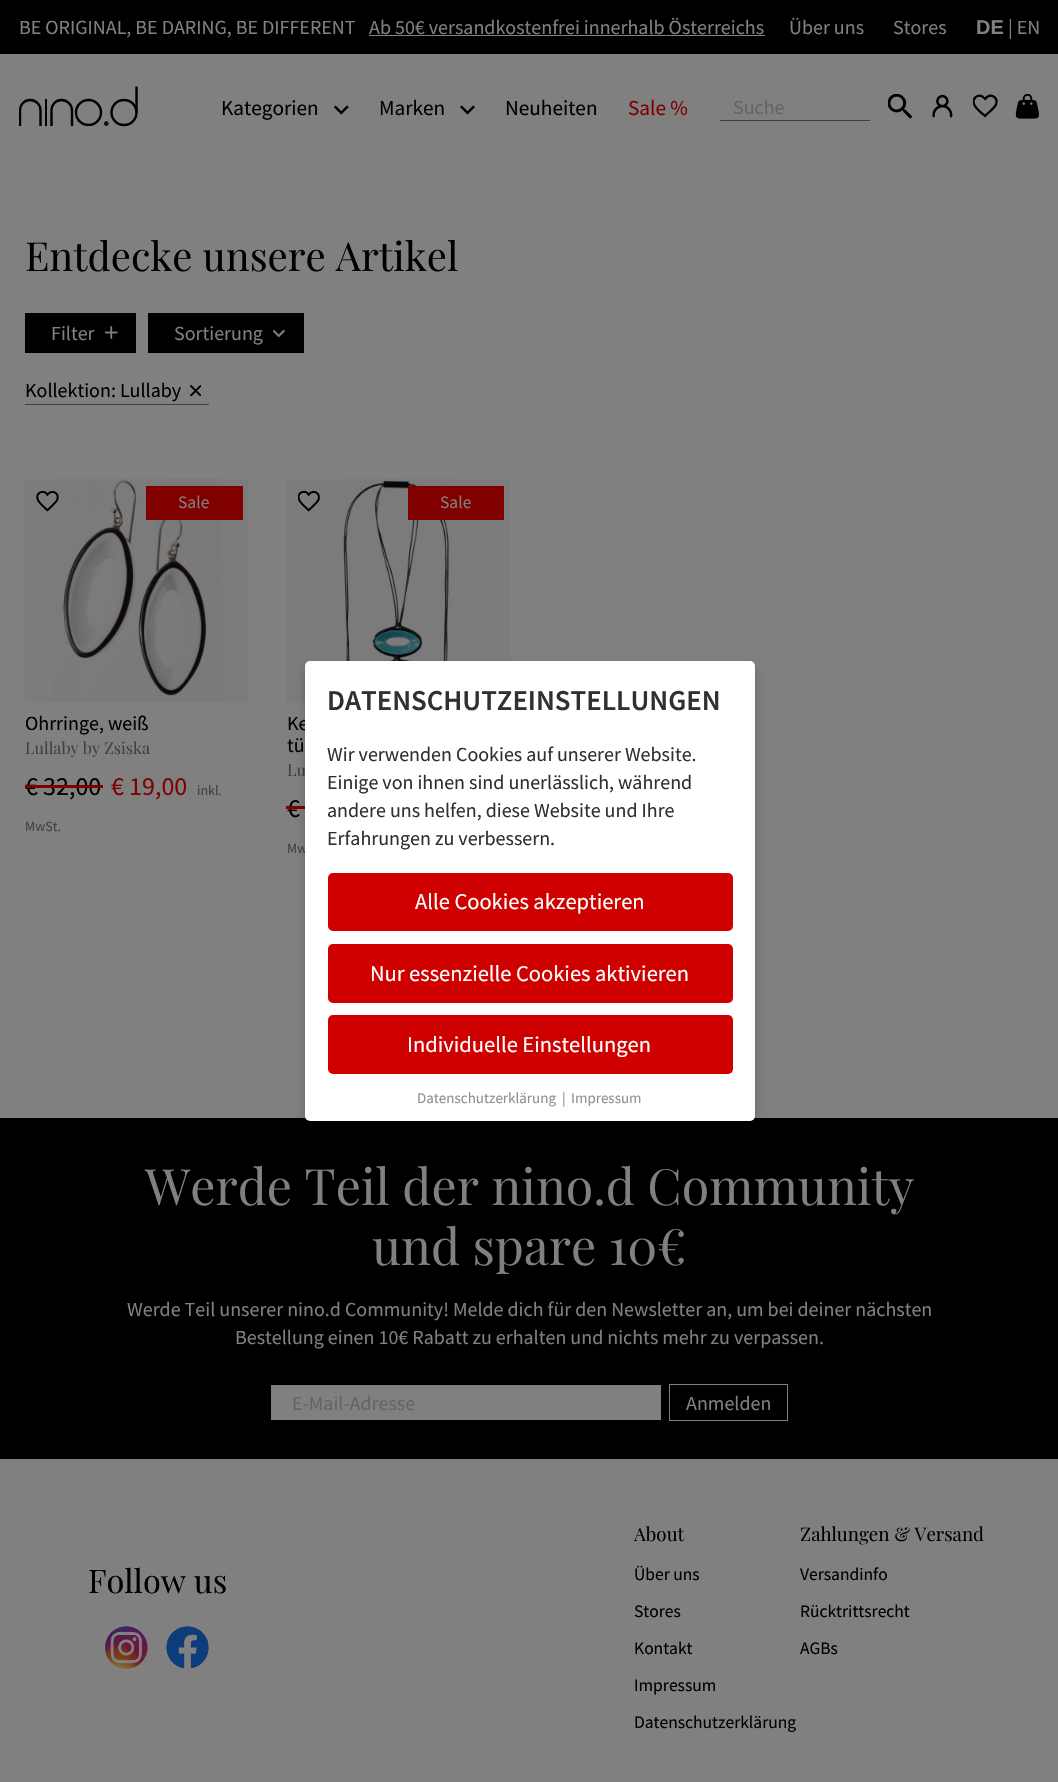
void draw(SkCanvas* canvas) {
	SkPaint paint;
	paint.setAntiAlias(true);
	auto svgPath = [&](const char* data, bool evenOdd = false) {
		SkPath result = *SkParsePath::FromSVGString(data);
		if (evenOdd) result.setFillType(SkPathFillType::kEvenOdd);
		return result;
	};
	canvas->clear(0xff808080);
	paint.setColor(0xff000000);
	canvas->drawRect(SkRect::MakeXYWH(0, 0, 1058, 54), paint);
	SkFont f1(fontMgr->matchFamilyStyle("Source Sans Pro", SkFontStyle::Normal()), 20);
	f1.setSubpixel(true);
	paint.setColor(0xff808080);
	canvas->drawString("BE ORIGINAL, BE DARING, BE DIFFERENT", 19, 34, f1, paint);
	canvas->drawString("Ab 50€ versandkostenfrei innerhalb Österreichs", 369, 34, f1, paint);
	canvas->drawRect(SkRect::MakeXYWH(369, 35, 396, 1), paint);
	canvas->drawString("Über uns", 789, 34, f1, paint);
	canvas->drawString("Stores", 893, 34, f1, paint);
	SkFont f2(fontMgr->matchFamilyStyle("Liberation Sans", SkFontStyle::Bold()), 20);
	f2.setSubpixel(true);
	canvas->drawString("DE", 976, 34, f2, paint);
	canvas->drawString("| EN", 1008, 34, f1, paint);
	canvas->save();
	canvas->clipRect(SkRect::MakeXYWH(19, 86, 119, 40));
	paint.setStroke(true);
	paint.setStrokeWidth(2.4);
	paint.setColor(0xff000000);
	canvas->drawPath(svgPath("M20 126V110.5C20 104.5 24.5 100 30 100C36 100 40.5 104.5 40.5 110.5V126"), paint);
	canvas->restore();
	canvas->drawPath(svgPath("M51.5 126V110.5C51.5 104.5 56 100 61.5 100C67 100 72 104.5 72 110.5V126"), paint);
	canvas->save();
	canvas->clipRect(SkRect::MakeXYWH(19, 86, 119, 40));
	canvas->drawCircle(88.5, 112.5, 12.5, paint);
	canvas->restore();
	canvas->drawCircle(124, 112.5, 12.5, paint);
	canvas->drawPath(svgPath("M136.5 112.5V86.5"), paint);
	paint.setStroke(false);
	canvas->drawRect(SkRect::MakeXYWH(45, 99, 2, 27), paint);
	paint.setColor(0xff0f0f0e);
	canvas->drawCircle(106.3, 123.6, 2, paint);
	paint.setStroke(true);
	paint.setStrokeWidth(0.7);
	paint.setColor(0xff000000);
	canvas->drawCircle(106.3, 123.6, 2, paint);
	canvas->drawImageRect(SkImages::DeferredFromEncodedData(SkData::MakeFromFileName("img1.png")), SkRect::MakeXYWH(334, 105, 15, 10), SkSamplingOptions());
	SkFont f3(fontMgr->matchFamilyStyle("Source Sans Pro", SkFontStyle::Normal()), 21.25);
	f3.setSubpixel(true);
	paint.setStroke(false);
	canvas->drawString("Kategorien", 221, 115, f3, paint);
	canvas->drawImageRect(SkImages::DeferredFromEncodedData(SkData::MakeFromFileName("img2.png")), SkRect::MakeXYWH(460, 105, 15, 10), SkSamplingOptions());
	canvas->drawString("Marken", 379, 115, f3, paint);
	canvas->drawString("Neuheiten", 505, 115, f3, paint);
	paint.setColor(0xff800000);
	canvas->drawString("Sale %", 628, 115, f3, paint);
	paint.setColor(0xff404040);
	canvas->drawRect(SkRect::MakeXYWH(720, 120, 150, 1), paint);
	paint.setColor(0xff60656c);
	canvas->drawString("Suche", 733, 114, f1, paint);
	canvas->drawImageRect(SkImages::DeferredFromEncodedData(SkData::MakeFromFileName("img3.png")), SkRect::MakeXYWH(888, 94, 25, 25), SkSamplingOptions());
	canvas->drawImageRect(SkImages::DeferredFromEncodedData(SkData::MakeFromFileName("img4.png")), SkRect::MakeXYWH(932, 94, 21, 24), SkSamplingOptions());
	canvas->save();
	canvas->clipRect(SkRect::MakeXYWH(973, 94, 25, 25));
	paint.setStroke(true);
	paint.setStrokeWidth(2.2);
	paint.setColor(0xff000000);
	canvas->drawPath(svgPath("M984 115C980.5 112 975.5 108.5 974 104C972 98.5 977.5 93.5 982.5 96.5L985 99C990.5 92.5 998.5 97 996 104.5C994.5 108 987.5 113.5 985 116Z"), paint);
	canvas->restore();
	canvas->drawImageRect(SkImages::DeferredFromEncodedData(SkData::MakeFromFileName("img5.png")), SkRect::MakeXYWH(1015, 94, 24, 25), SkSamplingOptions());
	SkFont f4(fontMgr->matchFamilyStyle("Playfair Display", SkFontStyle::Normal()), 40);
	f4.setSubpixel(true);
	paint.setStroke(false);
	canvas->drawString("Entdecke unsere Artikel", 25, 271, f4, paint);
	canvas->drawRect(SkRect::MakeXYWH(25, 313, 111, 40), paint);
	canvas->drawImageRect(SkImages::DeferredFromEncodedData(SkData::MakeFromFileName("img6.png")), SkRect::MakeXYWH(105, 326, 13, 13), SkSamplingOptions());
	paint.setColor(0xff808080);
	canvas->drawString("Filter", 51, 340, f1, paint);
	paint.setColor(0xff000000);
	canvas->drawRect(SkRect::MakeXYWH(148, 313, 156, 40), paint);
	canvas->drawImageRect(SkImages::DeferredFromEncodedData(SkData::MakeFromFileName("img7.png")), SkRect::MakeXYWH(273, 329, 12, 9), SkSamplingOptions());
	paint.setColor(0xff808080);
	canvas->drawString("Sortierung", 174, 340, f1, paint);
	paint.setColor(0xff404040);
	canvas->drawRect(SkRect::MakeXYWH(25, 404, 184, 1), paint);
	paint.setColor(0xff000000);
	canvas->drawString("Kollektion: Lullaby", 25, 397, f1, paint);
	canvas->save();
	canvas->clipRect(SkRect::MakeXYWH(190, 385, 11, 11));
	paint.setStroke(true);
	paint.setStrokeWidth(1.9);
	paint.setStrokeCap(SkPaint::kRound_Cap);
	paint.setStrokeJoin(SkPaint::kRound_Join);
	canvas->drawPath(svgPath("M200.5 386L191 395.5M191 386L200.5 395.5"), paint);
	canvas->restore();
	canvas->drawImageRect(SkImages::DeferredFromEncodedData(SkData::MakeFromFileName("img8.png")), SkRect::MakeXYWH(25, 479, 224, 224), SkSamplingOptions());
	canvas->drawImageRect(SkImages::DeferredFromEncodedData(SkData::MakeFromFileName("img9.png")), SkRect::MakeXYWH(36, 490, 23, 22), SkSamplingOptions());
	paint.setStroke(false);
	paint.setColor(0xff800000);
	canvas->drawRect(SkRect::MakeXYWH(146, 486, 97, 34), paint);
	SkFont f5(fontMgr->matchFamilyStyle("Source Sans Pro", SkFontStyle::Normal()), 17.5);
	f5.setSubpixel(true);
	paint.setColor(0xff808080);
	canvas->drawString("Sale", 178, 508, f5, paint);
	paint.setColor(0xff000000);
	canvas->drawString("Ohrringe, weiß", 25, 730, f1, paint);
	SkFont f6(fontMgr->matchFamilyStyle("Playfair Display", SkFontStyle::Normal()), 16.25);
	f6.setSubpixel(true);
	paint.setColor(0xff404040);
	canvas->drawString("Lullaby by Zsiska", 25, 754, f6, paint);
	SkFont f7(fontMgr->matchFamilyStyle("Source Sans Pro", SkFontStyle::Normal()), 26);
	f7.setSubpixel(true);
	paint.setColor(0xff000000);
	canvas->drawString("€ 32,00", 25, 795, f7, paint);
	paint.setColor(0xff800000);
	canvas->drawRect(SkRect::MakeXYWH(25, 785, 78, 3), paint);
	canvas->drawString("€ 19,00", 111, 795, f7, paint);
	SkFont f8(fontMgr->matchFamilyStyle("Source Sans Pro", SkFontStyle::Normal()), 14);
	f8.setSubpixel(true);
	paint.setColor(0xff404040);
	canvas->drawString("inkl.", 197, 795, f8, paint);
	canvas->drawString("MwSt.", 25, 831, f8, paint);
	canvas->drawImageRect(SkImages::DeferredFromEncodedData(SkData::MakeFromFileName("img10.png")), SkRect::MakeXYWH(286, 479, 224, 224), SkSamplingOptions());
	canvas->drawImageRect(SkImages::DeferredFromEncodedData(SkData::MakeFromFileName("img11.png")), SkRect::MakeXYWH(298, 490, 22, 22), SkSamplingOptions());
	paint.setColor(0xff800000);
	canvas->drawRect(SkRect::MakeXYWH(408, 486, 96, 34), paint);
	paint.setColor(0xff808080);
	canvas->drawString("Sale", 440, 508, f5, paint);
	paint.setColor(0xff000000);
	canvas->drawString("Ke", 287, 730, f1, paint);
	canvas->drawString("tü", 287, 752, f1, paint);
	paint.setColor(0xff404040);
	canvas->drawString("Lu", 287, 776, f6, paint);
	paint.setColor(0xff000000);
	canvas->drawString("€", 287, 817, f7, paint);
	paint.setColor(0xff800000);
	canvas->drawRect(SkRect::MakeXYWH(286, 806, 19, 3), paint);
	paint.setColor(0xff404040);
	canvas->drawString("Mw", 287, 853, f8, paint);
	paint.setColor(0xff000000);
	canvas->drawRect(SkRect::MakeXYWH(0, 1118, 1058, 341), paint);
	paint.setColor(0x33000000);
	paint.setMaskFilter(SkMaskFilter::MakeBlur(kNormal_SkBlurStyle, 5));
	canvas->drawRoundRect(SkRect::MakeXYWH(305, 666, 450, 460), 5, 5, paint);
	paint.setMaskFilter(nullptr);
	paint.setColor(0xffffffff);
	canvas->drawRoundRect(SkRect::MakeXYWH(305, 661, 450, 460), 5, 5, paint);
	SkFont f9(fontMgr->matchFamilyStyle("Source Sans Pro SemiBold", SkFontStyle(600, SkFontStyle::kNormal_Width, SkFontStyle::kUpright_Slant)), 28.75);
	f9.setSubpixel(true);
	paint.setColor(0xff303030);
	canvas->drawString("DATENSCHUTZEINSTELLUNGEN", 327, 710, f9, paint);
	canvas->drawString("Wir verwenden Cookies auf unserer Website.", 327, 761, f1, paint);
	canvas->drawString("Einige von ihnen sind unerlässlich, während", 327, 789, f1, paint);
	canvas->drawString("andere uns helfen, diese Website und Ihre", 327, 817, f1, paint);
	canvas->drawString("Erfahrungen zu verbessern.", 327, 845, f1, paint);
	paint.setColor(0xffce0000);
	canvas->drawRoundRect(SkRect::MakeXYWH(328, 873, 405, 58), 5, 5, paint);
	SkFont f10(fontMgr->matchFamilyStyle("Source Sans Pro", SkFontStyle::Normal()), 22.5);
	f10.setSubpixel(true);
	paint.setColor(0xffffffff);
	canvas->drawString("Alle Cookies akzeptieren", 415, 909, f10, paint);
	paint.setColor(0xffce0000);
	canvas->drawRoundRect(SkRect::MakeXYWH(328, 944, 405, 59), 5, 5, paint);
	paint.setColor(0xffffffff);
	canvas->drawString("Nur essenzielle Cookies aktivieren", 370, 981, f10, paint);
	paint.setColor(0xffce0000);
	canvas->drawRoundRect(SkRect::MakeXYWH(328, 1015, 405, 59), 5, 5, paint);
	paint.setColor(0xffffffff);
	canvas->drawString("Individuelle Einstellungen", 407, 1052, f10, paint);
	SkFont f11(fontMgr->matchFamilyStyle("Source Sans Pro", SkFontStyle::Normal()), 15);
	f11.setSubpixel(true);
	paint.setColor(0xff909090);
	canvas->drawString("Datenschutzerklärung", 417, 1103, f11, paint);
	canvas->drawString("|", 562, 1103, f11, paint);
	canvas->drawString("Impressum", 571, 1103, f11, paint);
	SkFont f12(fontMgr->matchFamilyStyle("Playfair Display", SkFontStyle::Normal()), 50);
	f12.setSubpixel(true);
	paint.setColor(0xff808080);
	canvas->drawString("Werde Teil der nino.d Community", 145, 1205, f12, paint);
	canvas->drawString("und spare 10€", 372, 1265, f12, paint);
	canvas->drawString("Werde Teil unserer nino.d Community! Melde dich für den Newsletter an, um bei deiner nächsten", 127, 1316, f1, paint);
	canvas->drawString("Bestellung einen 10€ Rabatt zu erhalten und nichts mehr zu verpassen.", 235, 1344, f1, paint);
	canvas->drawRect(SkRect::MakeXYWH(271, 1385, 390, 35), paint);
	paint.setColor(0xff60656c);
	canvas->drawString("E-Mail-Adresse", 292, 1410, f1, paint);
	paint.setStroke(true);
	paint.setStrokeWidth(1);
	paint.setStrokeCap(SkPaint::kButt_Cap);
	paint.setStrokeJoin(SkPaint::kMiter_Join);
	paint.setColor(0xff808080);
	canvas->drawRect(SkRect::MakeXYWH(669.5, 1384.5, 118, 36), paint);
	paint.setStroke(false);
	canvas->drawString("Anmelden", 686, 1410, f1, paint);
	SkFont f13(fontMgr->matchFamilyStyle("Playfair Display", SkFontStyle::Normal()), 32.5);
	f13.setSubpixel(true);
	paint.setColor(0xff000000);
	canvas->drawString("Follow us", 88, 1593, f13, paint);
	canvas->drawImageRect(SkImages::DeferredFromEncodedData(SkData::MakeFromFileName("img12.png")), SkRect::MakeXYWH(105, 1626, 43, 43), SkSamplingOptions());
	canvas->drawImageRect(SkImages::DeferredFromEncodedData(SkData::MakeFromFileName("img13.png")), SkRect::MakeXYWH(166, 1626, 43, 43), SkSamplingOptions());
	SkFont f14(fontMgr->matchFamilyStyle("Playfair Display", SkFontStyle::Normal()), 18.75);
	f14.setSubpixel(true);
	canvas->drawString("About", 634, 1541, f14, paint);
	canvas->drawString("Über uns", 634, 1580, f5, paint);
	canvas->drawString("Stores", 634, 1617, f5, paint);
	canvas->drawString("Kontakt", 634, 1654, f5, paint);
	canvas->drawString("Impressum", 634, 1691, f5, paint);
	canvas->drawString("Datenschutzerklärung", 634, 1728, f5, paint);
	canvas->drawString("Zahlungen & Versand", 800, 1541, f14, paint);
	canvas->drawString("Versandinfo", 800, 1580, f5, paint);
	canvas->drawString("Rücktrittsrecht", 800, 1617, f5, paint);
	canvas->drawString("AGBs", 800, 1654, f5, paint);
}
